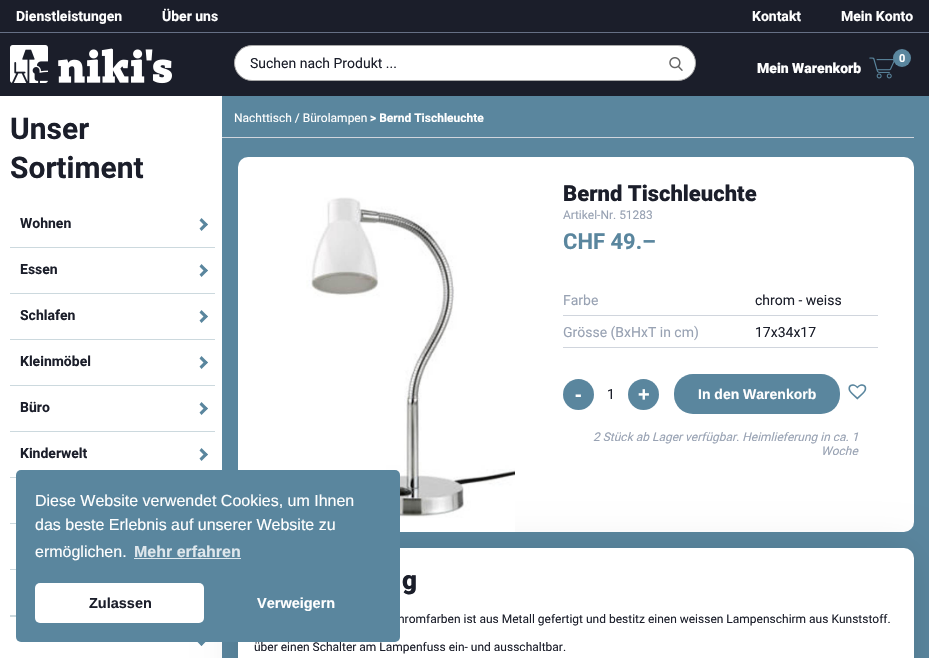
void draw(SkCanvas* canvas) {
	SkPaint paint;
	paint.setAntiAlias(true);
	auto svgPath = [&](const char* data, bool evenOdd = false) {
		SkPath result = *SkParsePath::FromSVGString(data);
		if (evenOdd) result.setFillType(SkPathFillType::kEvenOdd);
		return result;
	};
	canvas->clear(0xffffffff);
	paint.setColor(0xff1b1e2a);
	canvas->drawRect(SkRect::MakeXYWH(0, 0, 929, 96), paint);
	paint.setColor(0xff667085);
	canvas->drawRect(SkRect::MakeXYWH(0, 32, 929, 1), paint);
	SkFont f1(fontMgr->matchFamilyStyle("Roboto", SkFontStyle::Bold()), 14);
	f1.setSubpixel(true);
	paint.setColor(0xffffffff);
	canvas->drawString("Dienstleistungen", 16, 21, f1, paint);
	canvas->drawString("Über uns", 162, 21, f1, paint);
	canvas->drawString("Kontakt", 752, 21, f1, paint);
	canvas->drawString("Mein Konto", 841, 21, f1, paint);
	canvas->drawImageRect(SkImages::DeferredFromEncodedData(SkData::MakeFromFileName("img1.png")), SkRect::MakeXYWH(10, 45, 162, 39), SkSamplingOptions());
	canvas->drawRoundRect(SkRect::MakeXYWH(234.5, 45.5, 461, 35), 17.5, 17.5, paint);
	paint.setStroke(true);
	paint.setStrokeWidth(1);
	paint.setColor(0xffa9a9a9);
	canvas->drawRoundRect(SkRect::MakeXYWH(234.5, 45.5, 461, 35), 17.5, 17.5, paint);
	SkFont f2(fontMgr->matchFamilyStyle("Roboto", SkFontStyle::Normal()), 14);
	f2.setSubpixel(true);
	paint.setStroke(false);
	paint.setColor(0xff1b1e2a);
	canvas->drawString("Suchen nach Produkt ...", 250, 68, f2, paint);
	canvas->drawImageRect(SkImages::DeferredFromEncodedData(SkData::MakeFromFileName("img2.png")), SkRect::MakeXYWH(669, 57, 14, 14), SkSamplingOptions());
	SkFont f3(fontMgr->matchFamilyStyle("Roboto", SkFontStyle(900, SkFontStyle::kNormal_Width, SkFontStyle::kUpright_Slant)), 14);
	f3.setSubpixel(true);
	paint.setColor(0xffffffff);
	canvas->drawString("Mein Warenkorb", 757, 73, f3, paint);
	canvas->drawImageRect(SkImages::DeferredFromEncodedData(SkData::MakeFromFileName("img3.png")), SkRect::MakeXYWH(869, 57, 26, 22), SkSamplingOptions());
	paint.setColor(0xff5a869e);
	canvas->drawCircle(902, 58, 9, paint);
	SkFont f4(fontMgr->matchFamilyStyle("Roboto", SkFontStyle::Bold()), 11);
	f4.setSubpixel(true);
	paint.setColor(0xffffffff);
	canvas->drawString("0", 899, 62, f4, paint);
	SkFont f5(fontMgr->matchFamilyStyle("Roboto", SkFontStyle::Bold()), 30);
	f5.setSubpixel(true);
	paint.setColor(0xff1b1e2a);
	canvas->drawString("Unser", 10, 139, f5, paint);
	canvas->drawString("Sortiment", 10, 178, f5, paint);
	paint.setColor(0xffccd9de);
	canvas->drawRect(SkRect::MakeXYWH(10, 247, 205, 1), paint);
	paint.setColor(0xff1b1e2a);
	canvas->drawString("Wohnen", 20, 228, f1, paint);
	paint.setColor(0xff5a869e);
	canvas->drawPath(svgPath("M199.5 220.5L201.5 218L208 224.5L205.5 226.5Z"), paint);
	canvas->drawPath(svgPath("M199.5 228.5L205.5 222.5L208 224.5L201.5 231ZM199.5 266.5L201.5 264L208 270.5L205.5 272.5Z"), paint);
	paint.setColor(0xffccd9de);
	canvas->drawRect(SkRect::MakeXYWH(10, 293, 205, 1), paint);
	paint.setColor(0xff1b1e2a);
	canvas->drawString("Essen", 20, 274, f1, paint);
	paint.setColor(0xff5a869e);
	canvas->drawPath(svgPath("M199.5 274.5L205.5 268.5L208 270.5L201.5 277ZM199.5 312.5L201.5 310L208 316.5L205.5 318.5Z"), paint);
	paint.setColor(0xffccd9de);
	canvas->drawRect(SkRect::MakeXYWH(10, 339, 205, 1), paint);
	paint.setColor(0xff1b1e2a);
	canvas->drawString("Schlafen", 20, 320, f1, paint);
	paint.setColor(0xff5a869e);
	canvas->drawPath(svgPath("M199.5 320.5L205.5 314.5L208 316.5L201.5 323ZM199.5 358.5L201.5 356L208 362.5L205.5 364.5Z"), paint);
	paint.setColor(0xffccd9de);
	canvas->drawRect(SkRect::MakeXYWH(10, 385, 205, 1), paint);
	paint.setColor(0xff1b1e2a);
	canvas->drawString("Kleinmöbel", 20, 366, f1, paint);
	paint.setColor(0xff5a869e);
	canvas->drawPath(svgPath("M199.5 366.5L205.5 360.5L208 362.5L201.5 369ZM199.5 404.5L201.5 402L208 408.5L205.5 410.5Z"), paint);
	paint.setColor(0xffccd9de);
	canvas->drawRect(SkRect::MakeXYWH(10, 431, 205, 1), paint);
	paint.setColor(0xff1b1e2a);
	canvas->drawString("Büro", 20, 412, f1, paint);
	paint.setColor(0xff5a869e);
	canvas->drawPath(svgPath("M199.5 412.5L205.5 406.5L208 408.5L201.5 415ZM199.5 450.5L201.5 448L208 454.5L205.5 456.5Z"), paint);
	paint.setColor(0xffccd9de);
	canvas->drawRect(SkRect::MakeXYWH(10, 477, 6, 1), paint);
	paint.setColor(0xff1b1e2a);
	canvas->drawString("Kinderwelt", 20, 458, f1, paint);
	paint.setColor(0xff5a869e);
	canvas->drawPath(svgPath("M199.5 458.5L205.5 452.5L208 454.5L201.5 461Z"), paint);
	paint.setColor(0xffccd9de);
	canvas->drawRect(SkRect::MakeXYWH(10, 523, 6, 1), paint);
	canvas->drawRect(SkRect::MakeXYWH(10, 569, 6, 1), paint);
	canvas->drawRect(SkRect::MakeXYWH(10, 615, 6, 2), paint);
	paint.setColor(0xff5a869e);
	canvas->drawRect(SkRect::MakeXYWH(222, 96, 707, 562), paint);
	paint.setColor(0xffffffff);
	canvas->drawRoundRect(SkRect::MakeXYWH(238, 157, 676, 375), 10, 10, paint);
	paint.setColor(0x1c000000);
	paint.setMaskFilter(SkMaskFilter::MakeBlur(kNormal_SkBlurStyle, 20));
	canvas->drawRoundRect(SkRect::MakeXYWH(238, 550, 676, 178), 10, 10, paint);
	paint.setMaskFilter(nullptr);
	paint.setColor(0xff5a869e);
	canvas->drawPath(svgPath("M205.5 637.5L208 639.5L201.5 646L199.5 643.5Z"), paint);
	canvas->drawPath(svgPath("M197.5 637.5L203.5 643.5L201.5 646L195 639.5Z"), paint);
	paint.setColor(0xffd0d5dd);
	canvas->drawRect(SkRect::MakeXYWH(222, 137, 692, 1), paint);
	SkFont f6(fontMgr->matchFamilyStyle("Roboto", SkFontStyle::Normal()), 12);
	f6.setSubpixel(true);
	paint.setColor(0xffffffff);
	canvas->drawString("Nachttisch / Bürolampen", 234, 122, f6, paint);
	SkFont f7(fontMgr->matchFamilyStyle("Roboto", SkFontStyle::Bold()), 12);
	f7.setSubpixel(true);
	canvas->drawString("> Bernd Tischleuchte", 370, 122, f7, paint);
	canvas->drawImageRect(SkImages::DeferredFromEncodedData(SkData::MakeFromFileName("img4.png")), SkRect::MakeXYWH(282, 197, 233, 335), SkSamplingOptions());
	SkFont f8(fontMgr->matchFamilyStyle("Roboto", SkFontStyle(900, SkFontStyle::kNormal_Width, SkFontStyle::kUpright_Slant)), 22);
	f8.setSubpixel(true);
	paint.setColor(0xff1b1e2a);
	canvas->drawString("Bernd Tischleuchte", 563, 201, f8, paint);
	paint.setColor(0xff98a2b3);
	canvas->drawString("Artikel-Nr. 51283", 563, 219, f6, paint);
	SkFont f9(fontMgr->matchFamilyStyle("Roboto", SkFontStyle::Bold()), 22);
	f9.setSubpixel(true);
	paint.setColor(0xff5a869e);
	canvas->drawString("CHF 49.–", 563, 249, f9, paint);
	paint.setColor(0xff98a2b3);
	canvas->drawString("Farbe", 563, 305, f2, paint);
	paint.setColor(0xffd0d5dd);
	canvas->drawRect(SkRect::MakeXYWH(563, 315, 315, 1), paint);
	paint.setColor(0xff1b1e2a);
	canvas->drawString("chrom - weiss", 755, 305, f2, paint);
	paint.setColor(0xff98a2b3);
	canvas->drawString("Grösse (BxHxT in cm)", 563, 337, f2, paint);
	paint.setColor(0xffd0d5dd);
	canvas->drawRect(SkRect::MakeXYWH(563, 347, 315, 1), paint);
	paint.setColor(0xff1b1e2a);
	canvas->drawString("17x34x17", 755, 337, f2, paint);
	paint.setColor(0xff5a869e);
	canvas->drawCircle(578.5, 394.5, 15.5, paint);
	SkFont f10(fontMgr->matchFamilyStyle("Liberation Sans", SkFontStyle::Bold()), 20);
	f10.setSubpixel(true);
	paint.setColor(0xffffffff);
	canvas->drawString("-", 575, 401, f10, paint);
	paint.setColor(0xff1b1e2a);
	canvas->drawString("1", 607, 399, f2, paint);
	paint.setColor(0xff5a869e);
	canvas->drawCircle(643.5, 394.5, 15.5, paint);
	paint.setColor(0xffffffff);
	canvas->drawString("+", 638, 401, f10, paint);
	paint.setColor(0xff5a869e);
	canvas->drawRoundRect(SkRect::MakeXYWH(674, 374, 166, 40), 19, 19, paint);
	SkFont f11(fontMgr->matchFamilyStyle("Liberation Sans", SkFontStyle::Bold()), 14);
	f11.setSubpixel(true);
	paint.setColor(0xffffffff);
	canvas->drawString("In den Warenkorb", 698, 399, f11, paint);
	canvas->drawImageRect(SkImages::DeferredFromEncodedData(SkData::MakeFromFileName("img5.png")), SkRect::MakeXYWH(848, 384, 19, 16), SkSamplingOptions());
	SkFont f12(fontMgr->matchFamilyStyle("Roboto", SkFontStyle::Italic()), 12);
	f12.setSubpixel(true);
	paint.setColor(0xff98a2b3);
	canvas->drawString("2 Stück ab Lager verfügbar. Heimlieferung in ca. 1", 593, 441, f12, paint);
	canvas->drawString("Woche", 821, 455, f12, paint);
	paint.setColor(0xffffffff);
	canvas->drawRoundRect(SkRect::MakeXYWH(238, 548, 676, 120), 10, 10, paint);
	SkFont f13(fontMgr->matchFamilyStyle("Roboto", SkFontStyle(900, SkFontStyle::kNormal_Width, SkFontStyle::kUpright_Slant)), 26);
	f13.setSubpixel(true);
	paint.setColor(0xff1b1e2a);
	canvas->drawString("g", 402, 589, f13, paint);
	canvas->drawString("hromfarben ist aus Metall gefertigt und bestitz einen weissen Lampenschirm aus Kunststoff.", 398, 623, f6, paint);
	canvas->drawString("über einen Schalter am Lampenfuss ein- und ausschaltbar.", 254, 651, f6, paint);
	paint.setColor(0xff5a869e);
	canvas->drawRoundRect(SkRect::MakeXYWH(16, 470, 384, 172), 5, 5, paint);
	SkFont f14(fontMgr->matchFamilyStyle("Liberation Sans", SkFontStyle::Normal()), 16);
	f14.setSubpixel(true);
	paint.setColor(0xffffffff);
	canvas->drawString("Diese Website verwendet Cookies, um Ihnen", 35, 506, f14, paint);
	canvas->drawString("das beste Erlebnis auf unserer Website zu", 35, 530, f14, paint);
	canvas->drawString("ermöglichen.", 35, 557, f14, paint);
	SkFont f15(fontMgr->matchFamilyStyle("Liberation Sans", SkFontStyle::Bold()), 16);
	f15.setSubpixel(true);
	paint.setColor(0xffdee7ec);
	canvas->drawString("Mehr erfahren", 134, 557, f15, paint);
	canvas->drawRect(SkRect::MakeXYWH(134, 558, 107, 1), paint);
	paint.setColor(0xffffffff);
	canvas->drawRoundRect(SkRect::MakeXYWH(35, 583, 169, 40), 5, 5, paint);
	SkFont f16(fontMgr->matchFamilyStyle("Liberation Sans", SkFontStyle::Bold()), 14.5);
	f16.setSubpixel(true);
	paint.setColor(0xff1b1e2a);
	canvas->drawString("Zulassen", 89, 608, f16, paint);
	paint.setColor(0xffffffff);
	canvas->drawString("Verweigern", 257, 608, f16, paint);
}
